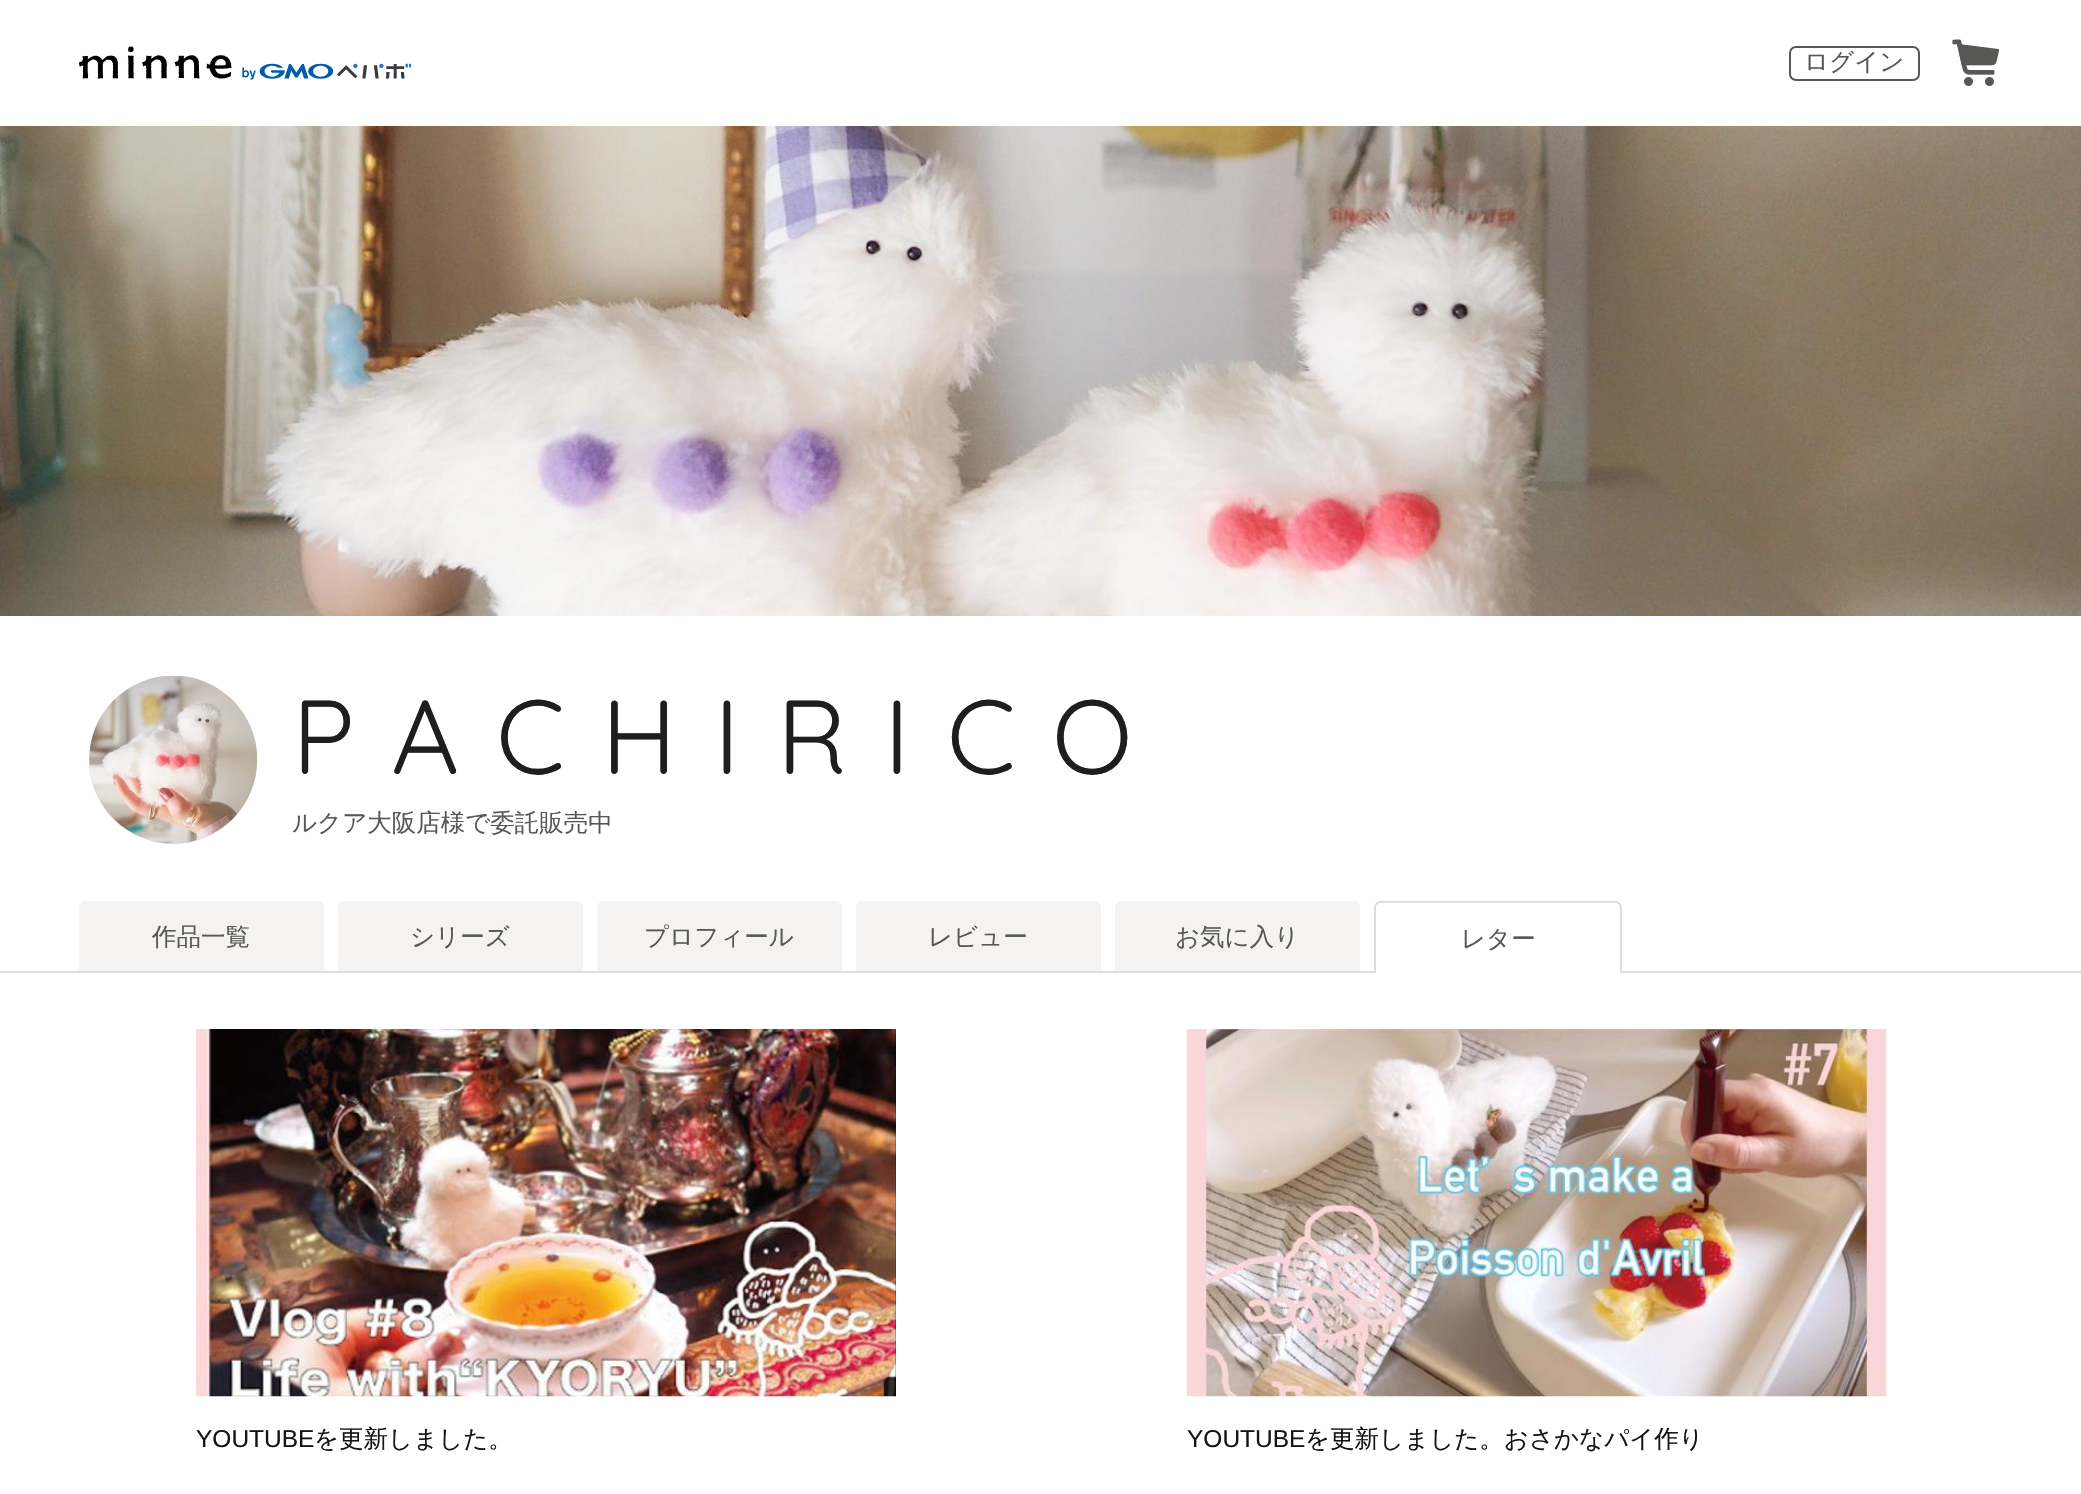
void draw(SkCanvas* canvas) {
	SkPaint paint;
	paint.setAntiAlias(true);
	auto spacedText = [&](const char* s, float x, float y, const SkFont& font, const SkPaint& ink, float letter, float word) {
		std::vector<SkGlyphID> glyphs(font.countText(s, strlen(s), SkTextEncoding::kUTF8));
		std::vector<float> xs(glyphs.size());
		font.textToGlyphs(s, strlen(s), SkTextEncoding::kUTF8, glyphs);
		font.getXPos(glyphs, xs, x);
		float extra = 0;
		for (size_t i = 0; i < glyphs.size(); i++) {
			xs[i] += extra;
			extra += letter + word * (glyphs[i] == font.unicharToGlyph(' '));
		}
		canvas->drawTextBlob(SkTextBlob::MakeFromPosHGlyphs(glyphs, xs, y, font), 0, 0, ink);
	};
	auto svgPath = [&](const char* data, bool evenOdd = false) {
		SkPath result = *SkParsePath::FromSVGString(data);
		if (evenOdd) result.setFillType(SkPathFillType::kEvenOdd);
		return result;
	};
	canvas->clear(0xffffffff);
	canvas->drawImageRect(SkImages::DeferredFromEncodedData(SkData::MakeFromFileName("img1.png")), SkRect::MakeXYWH(79, 46, 332, 34), SkSamplingOptions());
	paint.setStroke(true);
	paint.setStrokeWidth(2);
	paint.setColor(0xff575756);
	canvas->drawRoundRect(SkRect::MakeXYWH(1790, 47, 129, 33), 6, 6, paint);
	SkFont f1(fontMgr->matchFamilyStyle("WenQuanYi Zen Hei", SkFontStyle(500, SkFontStyle::kNormal_Width, SkFontStyle::kUpright_Slant)), 24.5);
	f1.setSubpixel(true);
	paint.setStroke(false);
	canvas->drawString("ログイン", 1804, 70, f1, paint);
	canvas->drawImageRect(SkImages::DeferredFromEncodedData(SkData::MakeFromFileName("img2.png")), SkRect::MakeXYWH(1952, 39, 48, 47), SkSamplingOptions());
	canvas->drawImageRect(SkImages::DeferredFromEncodedData(SkData::MakeFromFileName("img3.png")), SkRect::MakeXYWH(0, 126, 2081, 490), SkSamplingOptions());
	paint.setStroke(true);
	paint.setColor(0xffdddddd);
	canvas->drawCircle(173, 760, 83, paint);
	canvas->drawImageRect(SkImages::DeferredFromEncodedData(SkData::MakeFromFileName("img4.png")), SkRect::MakeXYWH(89, 675, 169, 169), SkSamplingOptions());
	SkFont f2(fontMgr->matchFamilyStyle("Quicksand", SkFontStyle(300, SkFontStyle::kNormal_Width, SkFontStyle::kUpright_Slant)), 105);
	f2.setSubpixel(true);
	paint.setStroke(false);
	paint.setColor(0xff1e1e1e);
	spacedText("PACHIRICO", 292, 774, f2, paint, 36.75, 0);
	paint.setColor(0xff575756);
	canvas->drawString("ルクア大阪店様で委託販売中", 292, 831, f1, paint);
	paint.setColor(0xfff4f3f2);
	canvas->drawPath(svgPath("M86 901H317C321 901 324 904 324 908V971H79V908C79 904 82 901 86 901Z"), paint);
	paint.setColor(0xff575756);
	canvas->drawString("作品一覧", 152, 945, f1, paint);
	paint.setColor(0xfff4f3f2);
	canvas->drawPath(svgPath("M345 901H576C580 901 583 904 583 908V971H338V908C338 904 341 901 345 901Z"), paint);
	paint.setColor(0xff575756);
	canvas->drawString("シリーズ", 410, 945, f1, paint);
	paint.setColor(0xfff4f3f2);
	canvas->drawPath(svgPath("M604 901H835C839 901 842 904 842 908V971H597V908C597 904 600 901 604 901Z"), paint);
	paint.setColor(0xff575756);
	canvas->drawString("プロフィール", 644, 945, f1, paint);
	paint.setColor(0xfff4f3f2);
	canvas->drawPath(svgPath("M863 901H1094C1098 901 1101 904 1101 908V971H856V908C856 904 859 901 863 901Z"), paint);
	paint.setColor(0xff575756);
	canvas->drawString("レビュー", 928, 945, f1, paint);
	paint.setColor(0xfff4f3f2);
	canvas->drawPath(svgPath("M1122 901H1353C1357 901 1360 904 1360 908V971H1115V908C1115 904 1118 901 1122 901Z"), paint);
	paint.setColor(0xff575756);
	canvas->drawString("お気に入り", 1175, 945, f1, paint);
	paint.setColor(0xffdddddd);
	canvas->drawRect(SkRect::MakeXYWH(0, 971, 2081, 2), paint);
	paint.setColor(0xffffffff);
	canvas->drawPath(svgPath("M1381 901H1615C1619 901 1622 904 1622 908V973H1374V908C1374 904 1377 901 1381 901Z"), paint);
	paint.setColor(0xffdddddd);
	canvas->drawPath(svgPath("M1381 901H1615C1619 901 1622 904 1622 908V973H1374V908C1374 904 1377 901 1381 901ZM1381 903H1615C1618 903 1620 905 1620 908V973H1376V908C1376 905 1378 903 1381 903Z", true), paint);
	paint.setColor(0xff575756);
	canvas->drawString("レター", 1461, 947, f1, paint);
	canvas->drawImageRect(SkImages::DeferredFromEncodedData(SkData::MakeFromFileName("img5.png")), SkRect::MakeXYWH(196, 1029, 700, 368), SkSamplingOptions());
	SkFont f3(fontMgr->matchFamilyStyle("Liberation Sans", SkFontStyle::Normal()), 24.5);
	f3.setSubpixel(true);
	paint.setColor(0xff141414);
	canvas->drawString("YOUTUBE", 196, 1447, f3, paint);
	canvas->drawString("を更新しました。", 314, 1447, f1, paint);
	canvas->drawImageRect(SkImages::DeferredFromEncodedData(SkData::MakeFromFileName("img6.png")), SkRect::MakeXYWH(1186, 1029, 701, 368), SkSamplingOptions());
	canvas->drawString("YOUTUBE", 1187, 1447, f3, paint);
	canvas->drawString("を更新しました。おさかなパイ作り", 1305, 1447, f1, paint);
}
